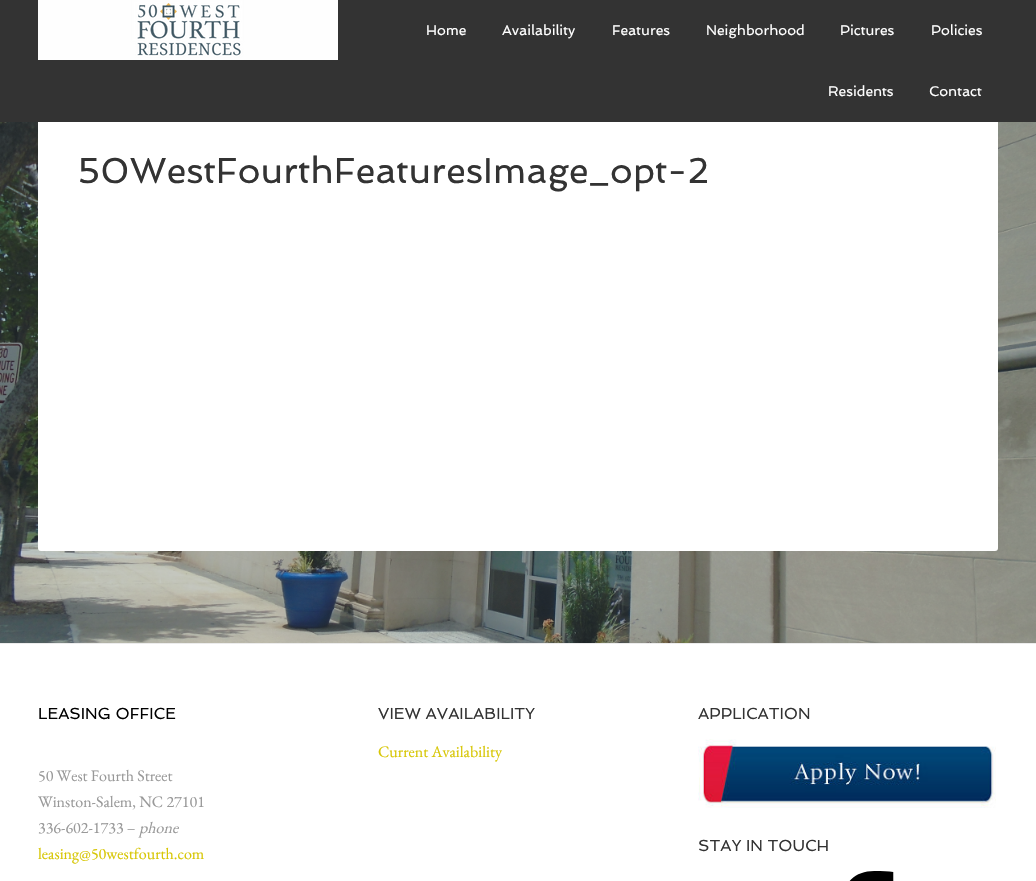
void draw(SkCanvas* canvas) {
	SkPaint paint;
	paint.setAntiAlias(true);
	canvas->clear(0xffffffff);
	canvas->drawImageRect(SkImages::DeferredFromEncodedData(SkData::MakeFromFileName("img1.png")), SkRect::MakeXYWH(0, 122, 1036, 521), SkSamplingOptions());
	paint.setColor(0xffffffff);
	canvas->drawRoundRect(SkRect::MakeXYWH(38, 113, 960, 438), 3, 3, paint);
	paint.setColor(0xff333333);
	canvas->drawRect(SkRect::MakeXYWH(0, 0, 1036, 122), paint);
	canvas->drawImageRect(SkImages::DeferredFromEncodedData(SkData::MakeFromFileName("img2.png")), SkRect::MakeXYWH(38, 0, 300, 60), SkSamplingOptions());
	SkFont f1(fontMgr->matchFamilyStyle("Spinnaker", SkFontStyle::Normal()), 14);
	f1.setSubpixel(true);
	paint.setColor(0xffffffff);
	canvas->drawString("Home", 426, 35, f1, paint);
	canvas->drawString("Availability", 502, 35, f1, paint);
	canvas->drawString("Features", 612, 35, f1, paint);
	canvas->drawString("Neighborhood", 706, 35, f1, paint);
	canvas->drawString("Pictures", 840, 35, f1, paint);
	canvas->drawString("Policies", 931, 35, f1, paint);
	canvas->drawString("Residents", 828, 96, f1, paint);
	canvas->drawString("Contact", 929, 96, f1, paint);
	SkFont f2(fontMgr->matchFamilyStyle("Spinnaker", SkFontStyle::Normal()), 36);
	f2.setSubpixel(true);
	paint.setColor(0xff333333);
	canvas->drawString("50WestFourthFeaturesImage_opt-2", 78, 183, f2, paint);
	paint.setColor(0xffececec);
	canvas->drawRect(SkRect::MakeXYWH(0, 643, 1036, 1), paint);
	SkFont f3(fontMgr->matchFamilyStyle("Spinnaker", SkFontStyle::Normal()), 16);
	f3.setSubpixel(true);
	paint.setColor(0xff000000);
	canvas->drawString("LEASING OFFICE", 38, 719, f3, paint);
	SkFont f4(fontMgr->matchFamilyStyle("EB Garamond", SkFontStyle::Normal()), 16);
	f4.setSubpixel(true);
	paint.setColor(0xff999999);
	canvas->drawString("50 West Fourth Street", 38, 781, f4, paint);
	canvas->drawString("Winston-Salem, NC 27101", 38, 807, f4, paint);
	canvas->drawString("336-602-1733 –", 38, 833, f4, paint);
	SkFont f5(fontMgr->matchFamilyStyle("EB Garamond", SkFontStyle::Italic()), 16);
	f5.setSubpixel(true);
	canvas->drawString("phone", 139, 833, f5, paint);
	paint.setColor(0xffd7c603);
	canvas->drawString("leasing@50westfourth.com", 38, 859, f4, paint);
	paint.setColor(0xff333333);
	canvas->drawString("VIEW AVAILABILITY", 378, 719, f3, paint);
	paint.setColor(0xffd7c603);
	canvas->drawString("Current Availability", 378, 757, f4, paint);
	paint.setColor(0xff333333);
	canvas->drawString("APPLICATION", 698, 719, f3, paint);
	canvas->drawImageRect(SkImages::DeferredFromEncodedData(SkData::MakeFromFileName("img3.png")), SkRect::MakeXYWH(698, 739, 298, 69), SkSamplingOptions());
	canvas->drawString("STAY IN TOUCH", 698, 851, f3, paint);
	canvas->drawImageRect(SkImages::DeferredFromEncodedData(SkData::MakeFromFileName("img4.png")), SkRect::MakeXYWH(849, 871, 45, 10), SkSamplingOptions());
}
